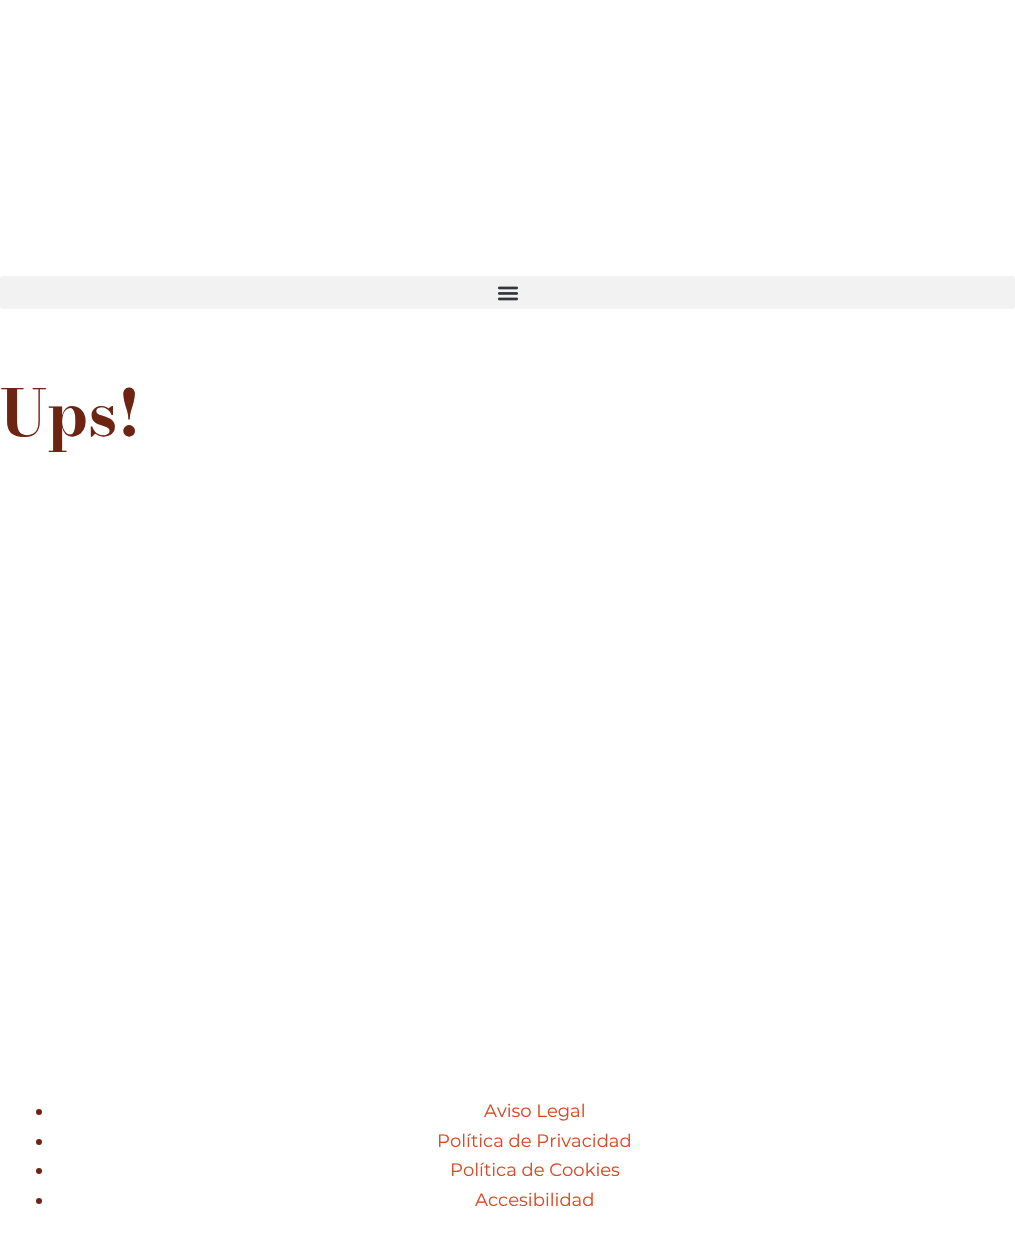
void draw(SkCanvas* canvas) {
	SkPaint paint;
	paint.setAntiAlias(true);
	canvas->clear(0xffffffff);
	paint.setColor(0xfff2f2f2);
	canvas->drawRoundRect(SkRect::MakeXYWH(0, 276, 1015, 33), 3, 3, paint);
	canvas->drawImageRect(SkImages::DeferredFromEncodedData(SkData::MakeFromFileName("img1.png")), SkRect::MakeXYWH(497, 286, 22, 15), SkSamplingOptions());
	SkFont f1(fontMgr->matchFamilyStyle("Bodoni Moda", SkFontStyle::Bold()), 64);
	f1.setSubpixel(true);
	paint.setColor(0xff6e2412);
	canvas->drawString("Ups!", 0, 436, f1, paint);
	canvas->drawCircle(39, 1112, 3, paint);
	SkFont f2(fontMgr->matchFamilyStyle("Montserrat", SkFontStyle(100, SkFontStyle::kNormal_Width, SkFontStyle::kUpright_Slant)), 18);
	f2.setSubpixel(true);
	paint.setColor(0xffdc4823);
	canvas->drawString("Aviso Legal", 484, 1117, f2, paint);
	paint.setColor(0xff6e2412);
	canvas->drawCircle(39, 1142, 3, paint);
	paint.setColor(0xffdc4823);
	canvas->drawString("Política de Privacidad", 437, 1147, f2, paint);
	paint.setColor(0xff6e2412);
	canvas->drawCircle(39, 1171, 3, paint);
	paint.setColor(0xffdc4823);
	canvas->drawString("Política de Cookies", 450, 1176, f2, paint);
	paint.setColor(0xff6e2412);
	canvas->drawCircle(39, 1201, 3, paint);
	paint.setColor(0xffdc4823);
	canvas->drawString("Accesibilidad", 475, 1206, f2, paint);
}
